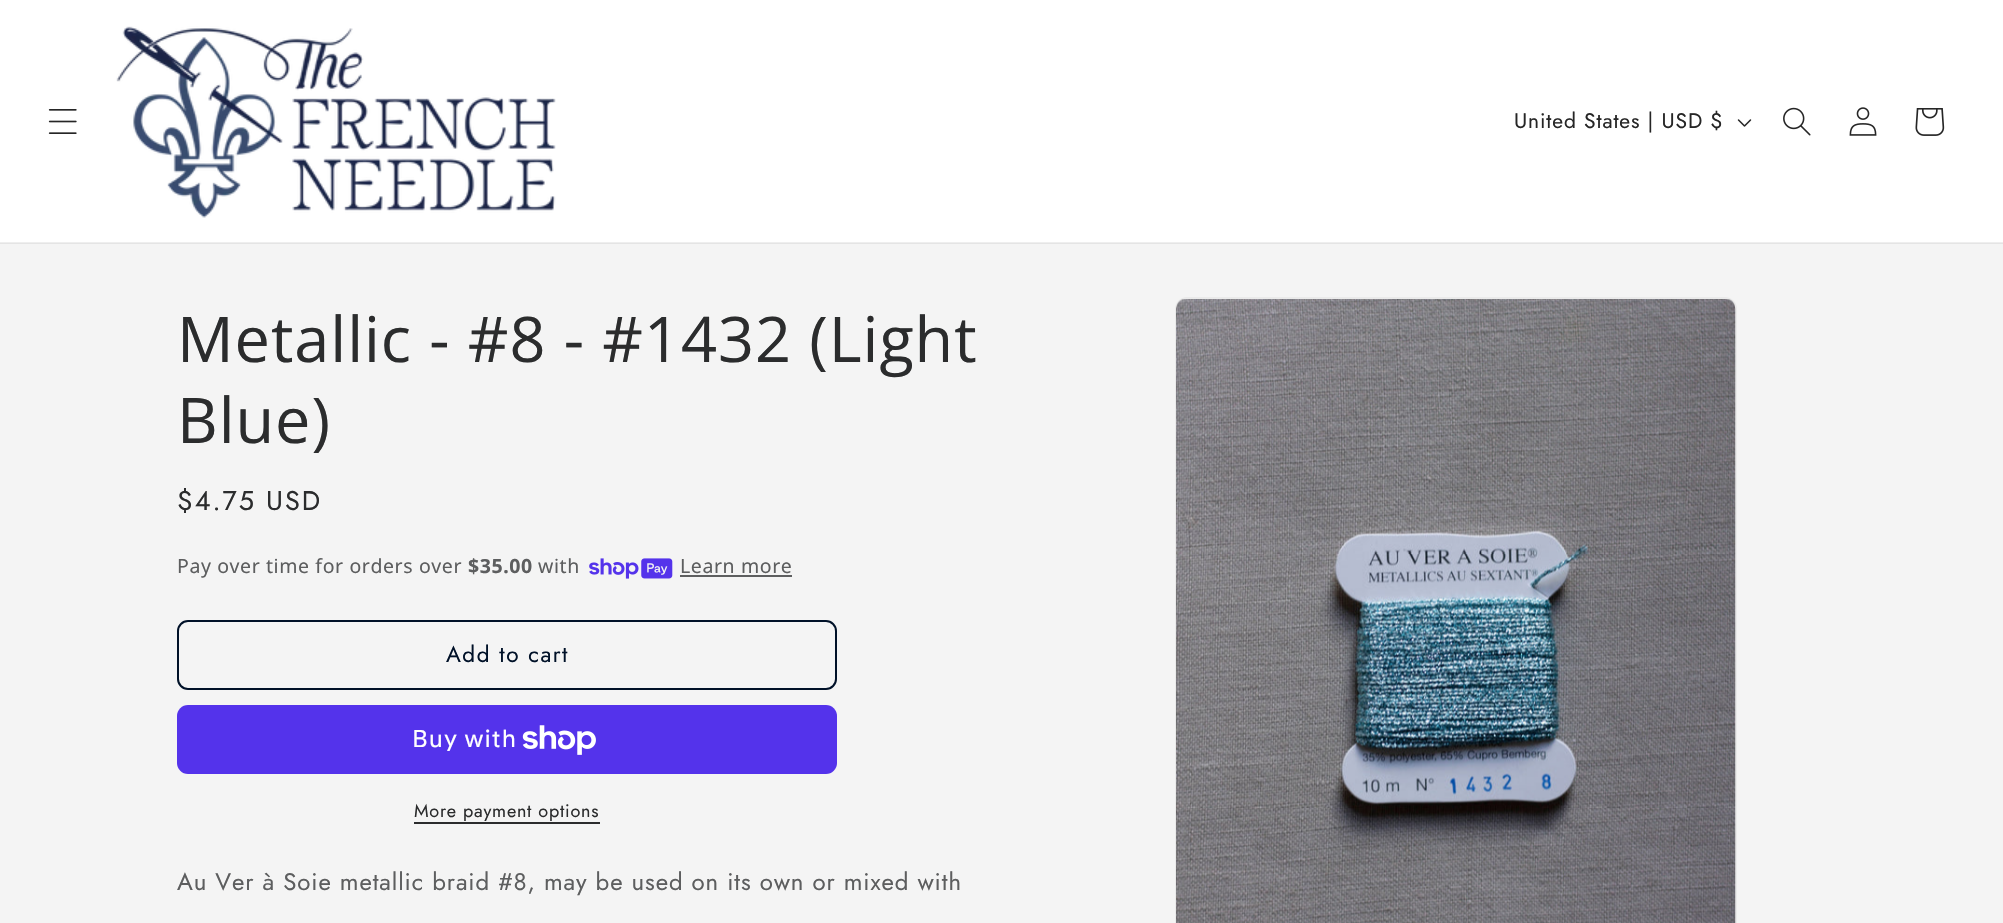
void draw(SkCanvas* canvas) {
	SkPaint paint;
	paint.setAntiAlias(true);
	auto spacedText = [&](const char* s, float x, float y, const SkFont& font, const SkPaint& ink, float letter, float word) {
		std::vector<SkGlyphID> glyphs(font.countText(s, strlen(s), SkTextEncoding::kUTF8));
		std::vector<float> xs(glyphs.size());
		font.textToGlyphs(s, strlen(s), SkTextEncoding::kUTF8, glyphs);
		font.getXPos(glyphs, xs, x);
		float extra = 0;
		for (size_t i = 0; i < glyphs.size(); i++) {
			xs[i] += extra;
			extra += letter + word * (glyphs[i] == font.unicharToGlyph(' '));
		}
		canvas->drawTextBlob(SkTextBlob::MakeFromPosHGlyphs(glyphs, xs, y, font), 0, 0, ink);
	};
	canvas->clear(0xfff4f4f4);
	paint.setColor(0xffe4e4e4);
	canvas->drawRect(SkRect::MakeXYWH(0, 243, 2003, 1), paint);
	paint.setColor(0xffffffff);
	canvas->drawRect(SkRect::MakeXYWH(0, 0, 2003, 242), paint);
	paint.setColor(0xffeeeeee);
	canvas->drawRect(SkRect::MakeXYWH(0, 242, 2003, 1), paint);
	canvas->drawImageRect(SkImages::DeferredFromEncodedData(SkData::MakeFromFileName("img1.png")), SkRect::MakeXYWH(48, 109, 29, 25), SkSamplingOptions());
	canvas->drawImageRect(SkImages::DeferredFromEncodedData(SkData::MakeFromFileName("img2.png")), SkRect::MakeXYWH(116, 26, 440, 192), SkSamplingOptions());
	SkFont f1(fontMgr->matchFamilyStyle("Jost", SkFontStyle::Normal()), 21);
	f1.setSubpixel(true);
	paint.setColor(0xff262626);
	spacedText("United States | USD $", 1514, 128, f1, paint, 0.9, 0);
	canvas->drawImageRect(SkImages::DeferredFromEncodedData(SkData::MakeFromFileName("img3.png")), SkRect::MakeXYWH(1737, 119, 15, 8), SkSamplingOptions());
	canvas->drawImageRect(SkImages::DeferredFromEncodedData(SkData::MakeFromFileName("img4.png")), SkRect::MakeXYWH(1783, 107, 28, 29), SkSamplingOptions());
	canvas->drawImageRect(SkImages::DeferredFromEncodedData(SkData::MakeFromFileName("img5.png")), SkRect::MakeXYWH(1849, 107, 28, 29), SkSamplingOptions());
	canvas->drawImageRect(SkImages::DeferredFromEncodedData(SkData::MakeFromFileName("img6.png")), SkRect::MakeXYWH(1915, 108, 30, 28), SkSamplingOptions());
	SkFont f2(fontMgr->matchFamilyStyle("Open Sans", SkFontStyle::Normal()), 63);
	f2.setSubpixel(true);
	paint.setColor(0xff2b2c2d);
	spacedText("Metallic - #8 - #1432 (Light", 177, 362, f2, paint, 0.95, 0);
	spacedText("Blue)", 177, 443, f2, paint, 0.95, 0);
	SkFont f3(fontMgr->matchFamilyStyle("Jost", SkFontStyle::Normal()), 27);
	f3.setSubpixel(true);
	spacedText("$4.75 USD", 177, 510, f3, paint, 2, 0);
	SkFont f4(fontMgr->matchFamilyStyle("Noto Sans", SkFontStyle::Normal()), 19.5);
	f4.setSubpixel(true);
	paint.setColor(0xff5d5e5f);
	spacedText("Pay over time for orders over", 177, 573, f4, paint, 0.6, 0);
	SkFont f5(fontMgr->matchFamilyStyle("Noto Sans", SkFontStyle::Bold()), 19.5);
	f5.setSubpixel(true);
	spacedText("$35.00", 468, 573, f5, paint, 0.6, 0);
	spacedText("with", 538, 573, f4, paint, 0.6, 0);
	canvas->drawImageRect(SkImages::DeferredFromEncodedData(SkData::MakeFromFileName("img7.png")), SkRect::MakeXYWH(589, 558, 84, 21), SkSamplingOptions());
	spacedText("Learn more", 680, 573, f4, paint, 0.6, 0);
	canvas->drawRect(SkRect::MakeXYWH(680, 575, 112, 2), paint);
	paint.setStroke(true);
	paint.setStrokeWidth(2);
	paint.setColor(0xff001128);
	canvas->drawRoundRect(SkRect::MakeXYWH(178, 621, 658, 68), 10, 10, paint);
	SkFont f6(fontMgr->matchFamilyStyle("Jost", SkFontStyle::Normal()), 22.5);
	f6.setSubpixel(true);
	paint.setStroke(false);
	spacedText("Add to cart", 446, 662, f6, paint, 1.5, 0);
	paint.setColor(0xff5433eb);
	canvas->drawRoundRect(SkRect::MakeXYWH(177, 705, 660, 69), 11, 11, paint);
	SkFont f7(fontMgr->matchFamilyStyle("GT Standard", SkFontStyle::Normal()), 24);
	f7.setSubpixel(true);
	paint.setColor(0xffffffff);
	spacedText("Buy with", 412, 747, f7, paint, 0.9, 0);
	canvas->drawImageRect(SkImages::DeferredFromEncodedData(SkData::MakeFromFileName("img8.png")), SkRect::MakeXYWH(522, 725, 74, 30), SkSamplingOptions());
	SkFont f8(fontMgr->matchFamilyStyle("Jost", SkFontStyle::Normal()), 18);
	f8.setSubpixel(true);
	paint.setColor(0xff2b2c2d);
	spacedText("More payment options", 414, 817, f8, paint, 0.75, 0);
	canvas->drawRect(SkRect::MakeXYWH(414, 822, 186, 2), paint);
	SkFont f9(fontMgr->matchFamilyStyle("Jost", SkFontStyle::Normal()), 24);
	f9.setSubpixel(true);
	paint.setColor(0xff5d5e5f);
	spacedText("Au Ver à Soie metallic braid #8, may be used on its own or mixed with", 177, 890, f9, paint, 0.9, 0);
	paint.setStroke(true);
	paint.setColor(0xffeaeaea);
	canvas->drawRoundRect(SkRect::MakeXYWH(1176, 298, 560, 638), 11, 11, paint);
	canvas->drawImageRect(SkImages::DeferredFromEncodedData(SkData::MakeFromFileName("img9.png")), SkRect::MakeXYWH(1176, 299, 560, 624), SkSamplingOptions());
}
